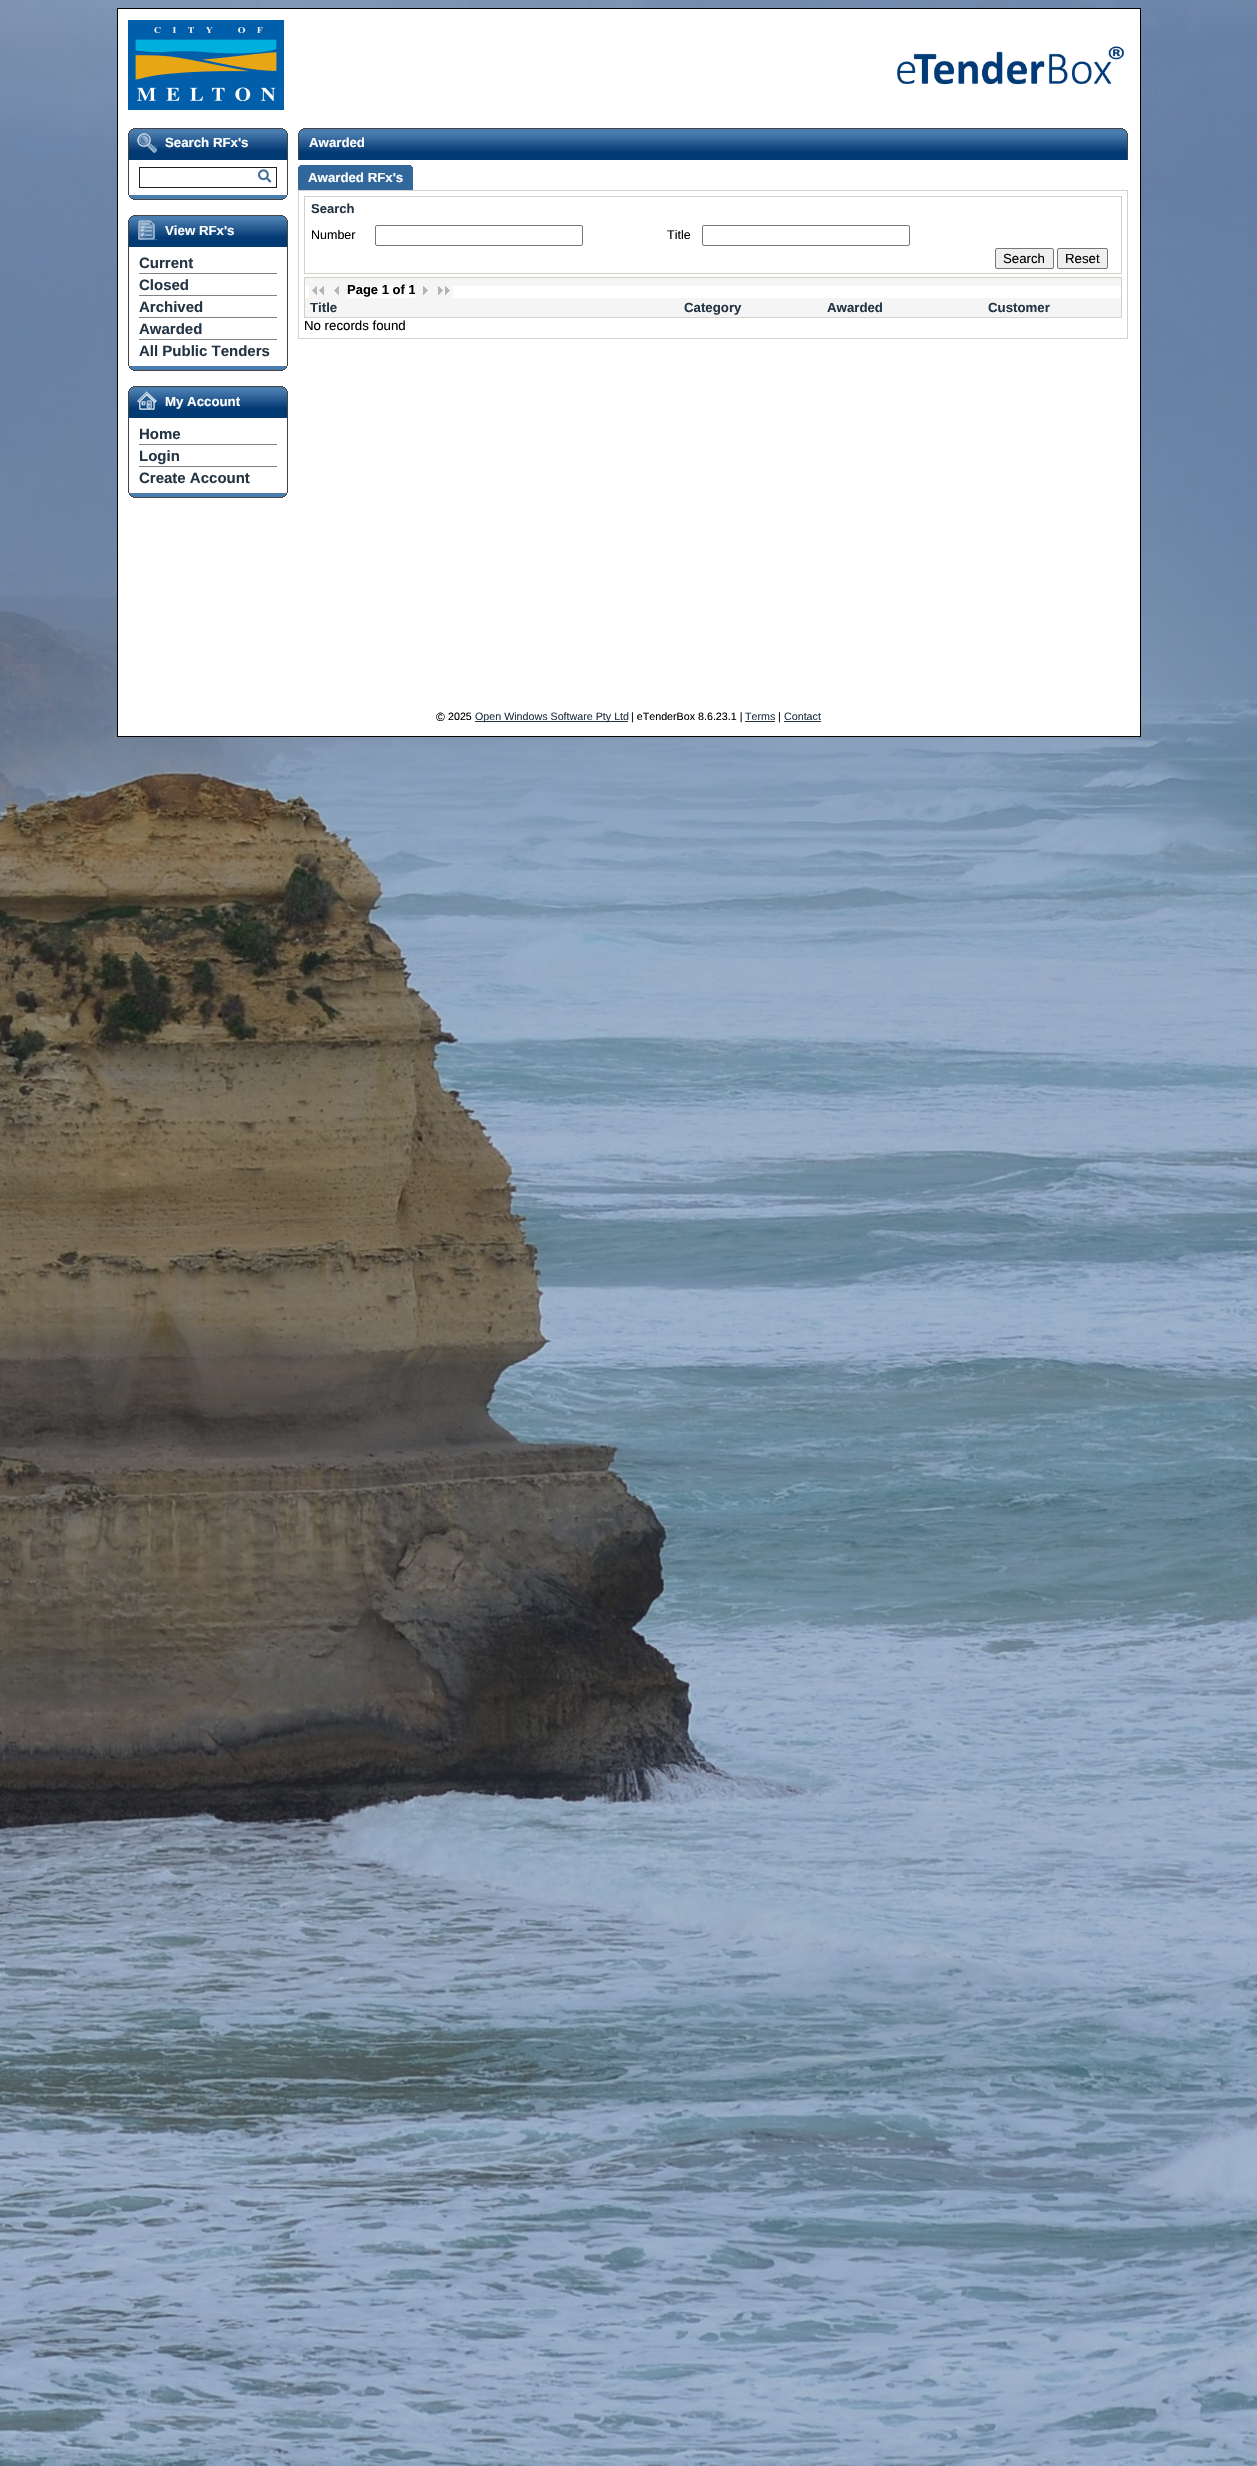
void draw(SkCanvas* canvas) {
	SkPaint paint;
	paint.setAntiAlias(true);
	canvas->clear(0xffffffff);
	canvas->drawImageRect(SkImages::DeferredFromEncodedData(SkData::MakeFromFileName("img1.png")), SkRect::MakeXYWH(0, 0, 1257, 2466), SkSamplingOptions());
	paint.setColor(0xffffffff);
	canvas->drawRect(SkRect::MakeXYWH(118, 9, 1022, 727), paint);
	paint.setColor(0xff000000);
	canvas->drawRect(SkRect::MakeXYWH(117, 8, 1024, 1), paint);
	canvas->drawRect(SkRect::MakeXYWH(1140, 8, 1, 729), paint);
	canvas->drawRect(SkRect::MakeXYWH(117, 8, 1, 602), paint);
	canvas->drawImageRect(SkImages::DeferredFromEncodedData(SkData::MakeFromFileName("img2.png")), SkRect::MakeXYWH(128, 20, 156, 90), SkSamplingOptions());
	canvas->drawImageRect(SkImages::DeferredFromEncodedData(SkData::MakeFromFileName("img3.png")), SkRect::MakeXYWH(897, 46, 228, 39), SkSamplingOptions());
	paint.setColor(0xff444444);
	canvas->drawRect(SkRect::MakeXYWH(133, 128, 150, 1), paint);
	paint.setColor(0xff497caf);
	canvas->drawRect(SkRect::MakeXYWH(131, 129, 154, 1), paint);
	paint.setColor(0xff444444);
	canvas->drawRect(SkRect::MakeXYWH(283, 129, 2, 1), paint);
	canvas->drawRect(SkRect::MakeXYWH(131, 129, 2, 1), paint);
	paint.setColor(0xff497caf);
	canvas->drawRect(SkRect::MakeXYWH(130, 130, 156, 1), paint);
	paint.setColor(0xff444444);
	canvas->drawRect(SkRect::MakeXYWH(285, 130, 1, 1), paint);
	canvas->drawRect(SkRect::MakeXYWH(130, 130, 1, 1), paint);
	paint.setColor(0xff497caf);
	canvas->drawRect(SkRect::MakeXYWH(129, 131, 158, 2), paint);
	paint.setColor(0xff444444);
	canvas->drawRect(SkRect::MakeXYWH(286, 131, 1, 2), paint);
	canvas->drawRect(SkRect::MakeXYWH(129, 131, 1, 2), paint);
	canvas->drawRect(SkRect::MakeXYWH(287, 133, 1, 62), paint);
	canvas->drawRect(SkRect::MakeXYWH(128, 133, 1, 62), paint);
	canvas->drawImageRect(SkImages::DeferredFromEncodedData(SkData::MakeFromFileName("img4.png")), SkRect::MakeXYWH(129, 133, 158, 27), SkSamplingOptions());
	canvas->drawImageRect(SkImages::DeferredFromEncodedData(SkData::MakeFromFileName("img5.png")), SkRect::MakeXYWH(137, 133, 20, 20), SkSamplingOptions());
	SkFont f1(fontMgr->matchFamilyStyle("Liberation Sans", SkFontStyle::Bold()), 13.25);
	f1.setSubpixel(true);
	paint.setColor(0xffffffff);
	canvas->drawString("Search RFx's", 165, 147, f1, paint);
	paint.setStroke(true);
	paint.setStrokeWidth(1);
	paint.setColor(0xff231f20);
	canvas->drawRect(SkRect::MakeXYWH(139.5, 167.5, 137, 20), paint);
	canvas->drawImageRect(SkImages::DeferredFromEncodedData(SkData::MakeFromFileName("img6.png")), SkRect::MakeXYWH(258, 169, 14, 14), SkSamplingOptions());
	paint.setStroke(false);
	paint.setColor(0xff497caf);
	canvas->drawRect(SkRect::MakeXYWH(129, 195, 158, 2), paint);
	paint.setColor(0xff444444);
	canvas->drawRect(SkRect::MakeXYWH(286, 195, 1, 2), paint);
	canvas->drawRect(SkRect::MakeXYWH(129, 195, 1, 2), paint);
	paint.setColor(0xff497caf);
	canvas->drawRect(SkRect::MakeXYWH(130, 197, 156, 1), paint);
	paint.setColor(0xff444444);
	canvas->drawRect(SkRect::MakeXYWH(285, 197, 1, 1), paint);
	canvas->drawRect(SkRect::MakeXYWH(130, 197, 1, 1), paint);
	paint.setColor(0xff497caf);
	canvas->drawRect(SkRect::MakeXYWH(131, 198, 154, 1), paint);
	paint.setColor(0xff444444);
	canvas->drawRect(SkRect::MakeXYWH(283, 198, 2, 1), paint);
	canvas->drawRect(SkRect::MakeXYWH(131, 198, 2, 1), paint);
	canvas->drawRect(SkRect::MakeXYWH(133, 199, 150, 1), paint);
	canvas->drawRect(SkRect::MakeXYWH(133, 215, 150, 1), paint);
	paint.setColor(0xff497caf);
	canvas->drawRect(SkRect::MakeXYWH(131, 216, 154, 1), paint);
	paint.setColor(0xff444444);
	canvas->drawRect(SkRect::MakeXYWH(283, 216, 2, 1), paint);
	canvas->drawRect(SkRect::MakeXYWH(131, 216, 2, 1), paint);
	paint.setColor(0xff497caf);
	canvas->drawRect(SkRect::MakeXYWH(130, 217, 156, 1), paint);
	paint.setColor(0xff444444);
	canvas->drawRect(SkRect::MakeXYWH(285, 217, 1, 1), paint);
	canvas->drawRect(SkRect::MakeXYWH(130, 217, 1, 1), paint);
	paint.setColor(0xff497caf);
	canvas->drawRect(SkRect::MakeXYWH(129, 218, 158, 2), paint);
	paint.setColor(0xff444444);
	canvas->drawRect(SkRect::MakeXYWH(286, 218, 1, 2), paint);
	canvas->drawRect(SkRect::MakeXYWH(129, 218, 1, 2), paint);
	canvas->drawRect(SkRect::MakeXYWH(287, 220, 1, 146), paint);
	canvas->drawRect(SkRect::MakeXYWH(128, 220, 1, 146), paint);
	canvas->drawImageRect(SkImages::DeferredFromEncodedData(SkData::MakeFromFileName("img4.png")), SkRect::MakeXYWH(129, 220, 158, 27), SkSamplingOptions());
	canvas->drawImageRect(SkImages::DeferredFromEncodedData(SkData::MakeFromFileName("img7.png")), SkRect::MakeXYWH(138, 220, 19, 20), SkSamplingOptions());
	paint.setColor(0xffffffff);
	canvas->drawString("View RFx's", 165, 235, f1, paint);
	paint.setColor(0xff808080);
	canvas->drawRect(SkRect::MakeXYWH(139, 273, 138, 1), paint);
	SkFont f2(fontMgr->matchFamilyStyle("Liberation Sans", SkFontStyle::Bold()), 15);
	f2.setSubpixel(true);
	paint.setColor(0xff233444);
	canvas->drawString("Current", 139, 268, f2, paint);
	paint.setColor(0xff808080);
	canvas->drawRect(SkRect::MakeXYWH(139, 295, 138, 1), paint);
	paint.setColor(0xff233444);
	canvas->drawString("Closed", 139, 290, f2, paint);
	paint.setColor(0xff808080);
	canvas->drawRect(SkRect::MakeXYWH(139, 317, 138, 1), paint);
	paint.setColor(0xff233444);
	canvas->drawString("Archived", 139, 312, f2, paint);
	paint.setColor(0xff808080);
	canvas->drawRect(SkRect::MakeXYWH(139, 339, 138, 1), paint);
	paint.setColor(0xff233444);
	canvas->drawString("Awarded", 139, 334, f2, paint);
	canvas->drawString("All Public Tenders", 139, 356, f2, paint);
	paint.setColor(0xff497caf);
	canvas->drawRect(SkRect::MakeXYWH(129, 366, 158, 2), paint);
	paint.setColor(0xff444444);
	canvas->drawRect(SkRect::MakeXYWH(286, 366, 1, 2), paint);
	canvas->drawRect(SkRect::MakeXYWH(129, 366, 1, 2), paint);
	paint.setColor(0xff497caf);
	canvas->drawRect(SkRect::MakeXYWH(130, 368, 156, 1), paint);
	paint.setColor(0xff444444);
	canvas->drawRect(SkRect::MakeXYWH(285, 368, 1, 1), paint);
	canvas->drawRect(SkRect::MakeXYWH(130, 368, 1, 1), paint);
	paint.setColor(0xff497caf);
	canvas->drawRect(SkRect::MakeXYWH(131, 369, 154, 1), paint);
	paint.setColor(0xff444444);
	canvas->drawRect(SkRect::MakeXYWH(283, 369, 2, 1), paint);
	canvas->drawRect(SkRect::MakeXYWH(131, 369, 2, 1), paint);
	canvas->drawRect(SkRect::MakeXYWH(133, 370, 150, 1), paint);
	canvas->drawRect(SkRect::MakeXYWH(133, 386, 150, 1), paint);
	paint.setColor(0xff497caf);
	canvas->drawRect(SkRect::MakeXYWH(131, 387, 154, 1), paint);
	paint.setColor(0xff444444);
	canvas->drawRect(SkRect::MakeXYWH(283, 387, 2, 1), paint);
	canvas->drawRect(SkRect::MakeXYWH(131, 387, 2, 1), paint);
	paint.setColor(0xff497caf);
	canvas->drawRect(SkRect::MakeXYWH(130, 388, 156, 1), paint);
	paint.setColor(0xff444444);
	canvas->drawRect(SkRect::MakeXYWH(285, 388, 1, 1), paint);
	canvas->drawRect(SkRect::MakeXYWH(130, 388, 1, 1), paint);
	paint.setColor(0xff497caf);
	canvas->drawRect(SkRect::MakeXYWH(129, 389, 158, 2), paint);
	paint.setColor(0xff444444);
	canvas->drawRect(SkRect::MakeXYWH(286, 389, 1, 2), paint);
	canvas->drawRect(SkRect::MakeXYWH(129, 389, 1, 2), paint);
	canvas->drawRect(SkRect::MakeXYWH(287, 391, 1, 102), paint);
	canvas->drawRect(SkRect::MakeXYWH(128, 391, 1, 102), paint);
	canvas->drawImageRect(SkImages::DeferredFromEncodedData(SkData::MakeFromFileName("img4.png")), SkRect::MakeXYWH(129, 391, 158, 27), SkSamplingOptions());
	canvas->drawImageRect(SkImages::DeferredFromEncodedData(SkData::MakeFromFileName("img8.png")), SkRect::MakeXYWH(137, 391, 20, 19), SkSamplingOptions());
	paint.setColor(0xffffffff);
	canvas->drawString("My Account", 165, 406, f1, paint);
	paint.setColor(0xff808080);
	canvas->drawRect(SkRect::MakeXYWH(139, 444, 138, 1), paint);
	paint.setColor(0xff233444);
	canvas->drawString("Home", 139, 439, f2, paint);
	paint.setColor(0xff808080);
	canvas->drawRect(SkRect::MakeXYWH(139, 466, 138, 1), paint);
	paint.setColor(0xff233444);
	canvas->drawString("Login", 139, 461, f2, paint);
	canvas->drawString("Create Account", 139, 483, f2, paint);
	paint.setColor(0xff497caf);
	canvas->drawRect(SkRect::MakeXYWH(129, 493, 158, 2), paint);
	paint.setColor(0xff444444);
	canvas->drawRect(SkRect::MakeXYWH(286, 493, 1, 2), paint);
	canvas->drawRect(SkRect::MakeXYWH(129, 493, 1, 2), paint);
	paint.setColor(0xff497caf);
	canvas->drawRect(SkRect::MakeXYWH(130, 495, 156, 1), paint);
	paint.setColor(0xff444444);
	canvas->drawRect(SkRect::MakeXYWH(285, 495, 1, 1), paint);
	canvas->drawRect(SkRect::MakeXYWH(130, 495, 1, 1), paint);
	paint.setColor(0xff497caf);
	canvas->drawRect(SkRect::MakeXYWH(131, 496, 154, 1), paint);
	paint.setColor(0xff444444);
	canvas->drawRect(SkRect::MakeXYWH(283, 496, 2, 1), paint);
	canvas->drawRect(SkRect::MakeXYWH(131, 496, 2, 1), paint);
	canvas->drawRect(SkRect::MakeXYWH(133, 497, 150, 1), paint);
	canvas->drawRect(SkRect::MakeXYWH(303, 128, 820, 1), paint);
	paint.setColor(0xff497caf);
	canvas->drawRect(SkRect::MakeXYWH(301, 129, 824, 1), paint);
	paint.setColor(0xff444444);
	canvas->drawRect(SkRect::MakeXYWH(1123, 129, 2, 1), paint);
	canvas->drawRect(SkRect::MakeXYWH(301, 129, 2, 1), paint);
	paint.setColor(0xff497caf);
	canvas->drawRect(SkRect::MakeXYWH(300, 130, 826, 1), paint);
	paint.setColor(0xff444444);
	canvas->drawRect(SkRect::MakeXYWH(1125, 130, 1, 1), paint);
	canvas->drawRect(SkRect::MakeXYWH(300, 130, 1, 1), paint);
	paint.setColor(0xff497caf);
	canvas->drawRect(SkRect::MakeXYWH(299, 131, 828, 2), paint);
	paint.setColor(0xff444444);
	canvas->drawRect(SkRect::MakeXYWH(1126, 131, 1, 2), paint);
	canvas->drawRect(SkRect::MakeXYWH(299, 131, 1, 2), paint);
	canvas->drawRect(SkRect::MakeXYWH(1127, 133, 1, 27), paint);
	canvas->drawRect(SkRect::MakeXYWH(298, 133, 1, 27), paint);
	canvas->drawImageRect(SkImages::DeferredFromEncodedData(SkData::MakeFromFileName("img9.png")), SkRect::MakeXYWH(299, 133, 828, 27), SkSamplingOptions());
	paint.setColor(0xffffffff);
	canvas->drawString("Awarded", 309, 147, f1, paint);
	paint.setColor(0xff32679c);
	canvas->drawRect(SkRect::MakeXYWH(298, 165, 115, 25), paint);
	canvas->drawImageRect(SkImages::DeferredFromEncodedData(SkData::MakeFromFileName("img10.png")), SkRect::MakeXYWH(411, 165, 2, 2), SkSamplingOptions());
	canvas->drawImageRect(SkImages::DeferredFromEncodedData(SkData::MakeFromFileName("img11.png")), SkRect::MakeXYWH(298, 165, 2, 2), SkSamplingOptions());
	paint.setColor(0xffffffff);
	canvas->drawString("Awarded RFx's", 308, 182, f1, paint);
	paint.setStroke(true);
	paint.setColor(0xffd4d0c8);
	canvas->drawRect(SkRect::MakeXYWH(298.5, 190.5, 829, 148), paint);
	canvas->drawRect(SkRect::MakeXYWH(304.5, 196.5, 817, 77), paint);
	SkFont f3(fontMgr->matchFamilyStyle("Liberation Sans", SkFontStyle::Bold()), 13);
	f3.setSubpixel(true);
	paint.setStroke(false);
	paint.setColor(0xff233444);
	canvas->drawString("Search", 311, 213, f3, paint);
	SkFont f4(fontMgr->matchFamilyStyle("Liberation Sans", SkFontStyle::Normal()), 12.5);
	f4.setSubpixel(true);
	paint.setColor(0xff000000);
	canvas->drawString("Number", 311, 239, f4, paint);
	paint.setStroke(true);
	paint.setColor(0xff767676);
	canvas->drawRoundRect(SkRect::MakeXYWH(375.5, 225.5, 207, 20), 1.5, 1.5, paint);
	paint.setStroke(false);
	paint.setColor(0xff000000);
	canvas->drawString("Title", 667, 239, f4, paint);
	paint.setStroke(true);
	paint.setColor(0xff767676);
	canvas->drawRoundRect(SkRect::MakeXYWH(702.5, 225.5, 207, 20), 1.5, 1.5, paint);
	paint.setStroke(false);
	paint.setColor(0xffefefef);
	canvas->drawRoundRect(SkRect::MakeXYWH(995.5, 248.5, 58, 20), 1.5, 1.5, paint);
	paint.setStroke(true);
	paint.setColor(0xff767676);
	canvas->drawRoundRect(SkRect::MakeXYWH(995.5, 248.5, 58, 20), 1.5, 1.5, paint);
	SkFont f5(fontMgr->matchFamilyStyle("Liberation Sans", SkFontStyle::Normal()), 13.25);
	f5.setSubpixel(true);
	paint.setStroke(false);
	paint.setColor(0xff000000);
	canvas->drawString("Search", 1003, 263, f5, paint);
	paint.setColor(0xffefefef);
	canvas->drawRoundRect(SkRect::MakeXYWH(1057.5, 248.5, 50, 20), 1.5, 1.5, paint);
	paint.setStroke(true);
	paint.setColor(0xff767676);
	canvas->drawRoundRect(SkRect::MakeXYWH(1057.5, 248.5, 50, 20), 1.5, 1.5, paint);
	paint.setStroke(false);
	paint.setColor(0xff000000);
	canvas->drawString("Reset", 1065, 263, f5, paint);
	paint.setColor(0xffd4d0c8);
	canvas->drawRect(SkRect::MakeXYWH(304, 277, 818, 1), paint);
	canvas->drawRect(SkRect::MakeXYWH(1121, 277, 1, 41), paint);
	canvas->drawRect(SkRect::MakeXYWH(304, 317, 818, 1), paint);
	canvas->drawRect(SkRect::MakeXYWH(304, 277, 1, 41), paint);
	paint.setColor(0xfff5f5f5);
	canvas->drawRect(SkRect::MakeXYWH(305, 278, 816, 8), paint);
	canvas->drawImageRect(SkImages::DeferredFromEncodedData(SkData::MakeFromFileName("img12.png")), SkRect::MakeXYWH(309, 286, 19, 12), SkSamplingOptions());
	canvas->drawImageRect(SkImages::DeferredFromEncodedData(SkData::MakeFromFileName("img13.png")), SkRect::MakeXYWH(328, 286, 19, 12), SkSamplingOptions());
	paint.setColor(0xff000000);
	canvas->drawString("Page 1 of 1", 347, 294, f3, paint);
	canvas->drawImageRect(SkImages::DeferredFromEncodedData(SkData::MakeFromFileName("img14.png")), SkRect::MakeXYWH(415, 286, 19, 12), SkSamplingOptions());
	canvas->drawImageRect(SkImages::DeferredFromEncodedData(SkData::MakeFromFileName("img15.png")), SkRect::MakeXYWH(434, 286, 19, 12), SkSamplingOptions());
	paint.setColor(0xfff5f5f5);
	canvas->drawRect(SkRect::MakeXYWH(305, 298, 816, 19), paint);
	paint.setColor(0xff233444);
	canvas->drawString("Title", 310, 312, f1, paint);
	canvas->drawString("Category", 684, 312, f1, paint);
	canvas->drawString("Awarded", 827, 312, f1, paint);
	canvas->drawString("Customer", 988, 312, f1, paint);
	paint.setColor(0xff000000);
	canvas->drawString("No records found", 304, 330, f5, paint);
	canvas->drawRect(SkRect::MakeXYWH(117, 736, 1024, 1), paint);
	canvas->drawRect(SkRect::MakeXYWH(117, 610, 1, 127), paint);
	SkFont f6(fontMgr->matchFamilyStyle("Liberation Sans", SkFontStyle::Normal()), 12);
	f6.setSubpixel(true);
	canvas->drawString("©", 436, 721, f6, paint);
	SkFont f7(fontMgr->matchFamilyStyle("Liberation Sans", SkFontStyle::Normal()), 10.7);
	f7.setSubpixel(true);
	canvas->drawString("2025", 448, 720, f7, paint);
	paint.setColor(0xff233444);
	canvas->drawRect(SkRect::MakeXYWH(475, 721, 153, 1), paint);
	canvas->drawString("Open Windows Software Pty Ltd", 475, 720, f7, paint);
	paint.setColor(0xff000000);
	canvas->drawString("| eTenderBox 8.6.23.1 |", 631, 720, f7, paint);
	paint.setColor(0xff233444);
	canvas->drawString("Terms", 745, 720, f7, paint);
	canvas->drawRect(SkRect::MakeXYWH(745, 721, 30, 1), paint);
	paint.setColor(0xff000000);
	canvas->drawString("|", 778, 720, f7, paint);
	paint.setColor(0xff233444);
	canvas->drawString("Contact", 784, 720, f7, paint);
	canvas->drawRect(SkRect::MakeXYWH(784, 721, 37, 1), paint);
}
